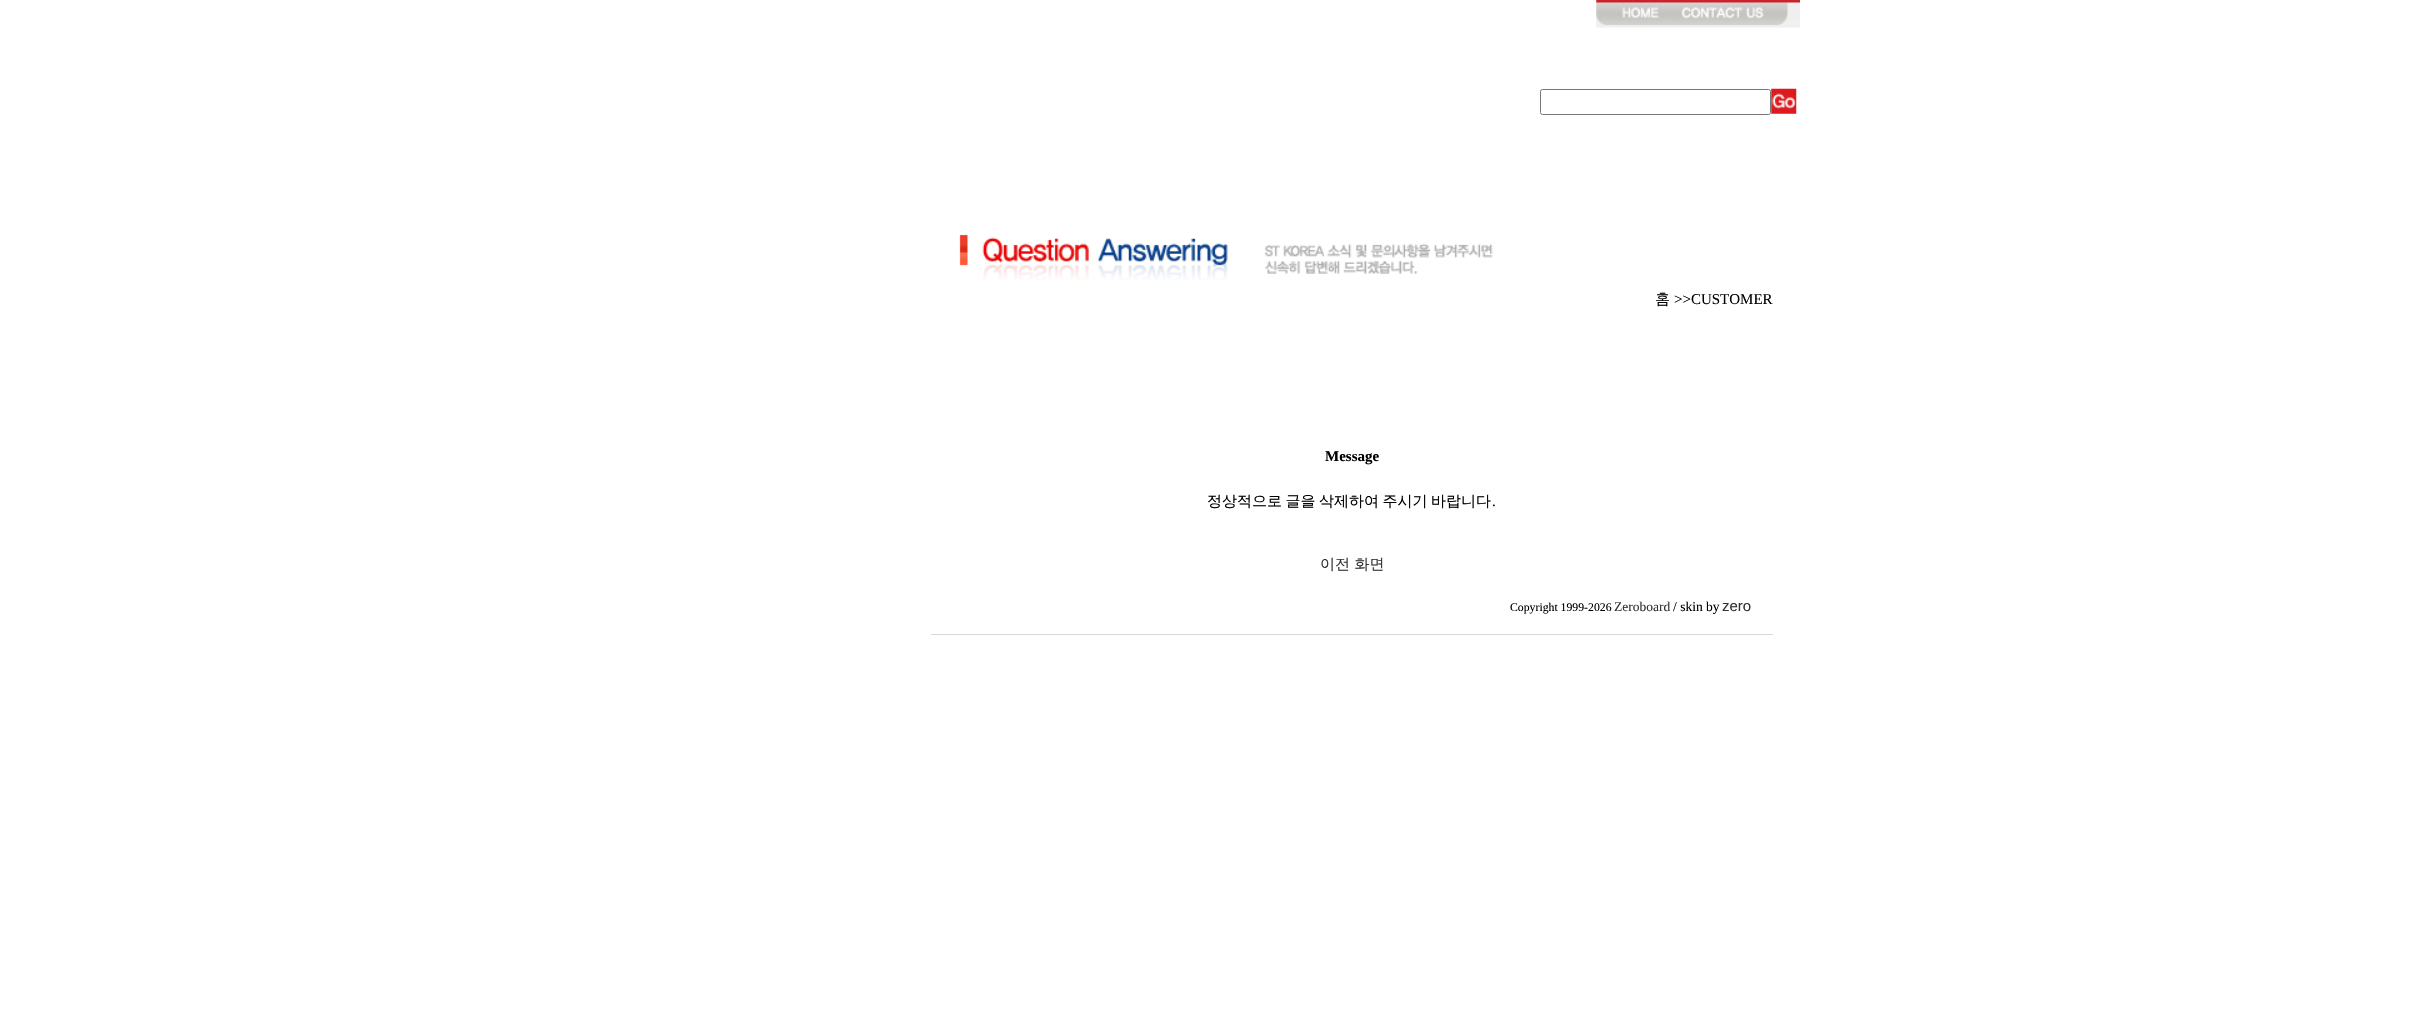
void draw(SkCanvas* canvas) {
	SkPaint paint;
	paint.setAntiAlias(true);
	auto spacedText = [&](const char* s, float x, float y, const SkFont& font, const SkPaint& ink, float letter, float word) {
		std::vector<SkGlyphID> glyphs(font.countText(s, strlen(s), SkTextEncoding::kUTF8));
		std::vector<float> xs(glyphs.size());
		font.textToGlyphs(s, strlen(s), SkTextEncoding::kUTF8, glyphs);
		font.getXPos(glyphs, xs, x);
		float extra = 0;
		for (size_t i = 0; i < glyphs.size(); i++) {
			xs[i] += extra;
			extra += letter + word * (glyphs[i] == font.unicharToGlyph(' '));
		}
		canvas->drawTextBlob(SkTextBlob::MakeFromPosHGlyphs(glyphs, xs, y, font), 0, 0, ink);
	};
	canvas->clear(0xffffffff);
	canvas->drawImageRect(SkImages::DeferredFromEncodedData(SkData::MakeFromFileName("img1.png")), SkRect::MakeXYWH(1596, 0, 204, 28), SkSamplingOptions());
	paint.setStroke(true);
	paint.setStrokeWidth(1);
	paint.setColor(0xff767676);
	canvas->drawRoundRect(SkRect::MakeXYWH(1540.5, 89.5, 230, 25), 2, 2, paint);
	canvas->drawImageRect(SkImages::DeferredFromEncodedData(SkData::MakeFromFileName("img2.png")), SkRect::MakeXYWH(1771, 88, 26, 26), SkSamplingOptions());
	canvas->drawImageRect(SkImages::DeferredFromEncodedData(SkData::MakeFromFileName("img3.png")), SkRect::MakeXYWH(959, 234, 534, 46), SkSamplingOptions());
	SkFont f1(fontMgr->matchFamilyStyle("WenQuanYi Zen Hei", SkFontStyle(500, SkFontStyle::kNormal_Width, SkFontStyle::kUpright_Slant)), 15);
	f1.setSubpixel(true);
	paint.setStroke(false);
	paint.setColor(0xff000000);
	canvas->drawString("홈", 1655, 304, f1, paint);
	SkFont f2(fontMgr->matchFamilyStyle("Liberation Serif", SkFontStyle::Normal()), 15);
	f2.setSubpixel(true);
	canvas->drawString(">>CUSTOMER", 1674, 304, f2, paint);
	SkFont f3(fontMgr->matchFamilyStyle("Liberation Serif", SkFontStyle::Bold()), 15);
	f3.setSubpixel(true);
	canvas->drawString("Message", 1325, 461, f3, paint);
	spacedText("정상적으로 글을 삭제하여 주시기 바랍니다", 1207, 506, f1, paint, 0, -1);
	canvas->drawString(".", 1492, 506, f2, paint);
	paint.setColor(0xff333333);
	canvas->drawString("이전 화면", 1320, 569, f1, paint);
	SkFont f4(fontMgr->matchFamilyStyle("Liberation Serif", SkFontStyle::Normal()), 11.75);
	f4.setSubpixel(true);
	paint.setColor(0xff000000);
	canvas->drawString("Copyright 1999-2026", 1510, 611, f4, paint);
	SkFont f5(fontMgr->matchFamilyStyle("Liberation Serif", SkFontStyle::Normal()), 13.5);
	f5.setSubpixel(true);
	paint.setColor(0xff333333);
	canvas->drawString("Zeroboard", 1614, 611, f5, paint);
	paint.setColor(0xff000000);
	canvas->drawString("/ skin by", 1673, 611, f5, paint);
	SkFont f6(fontMgr->matchFamilyStyle("Liberation Sans", SkFontStyle::Normal()), 15);
	f6.setSubpixel(true);
	paint.setColor(0xff333333);
	canvas->drawString("zero", 1722, 611, f6, paint);
	paint.setColor(0xffd7d7d7);
	canvas->drawRect(SkRect::MakeXYWH(931, 634, 842, 1), paint);
}
